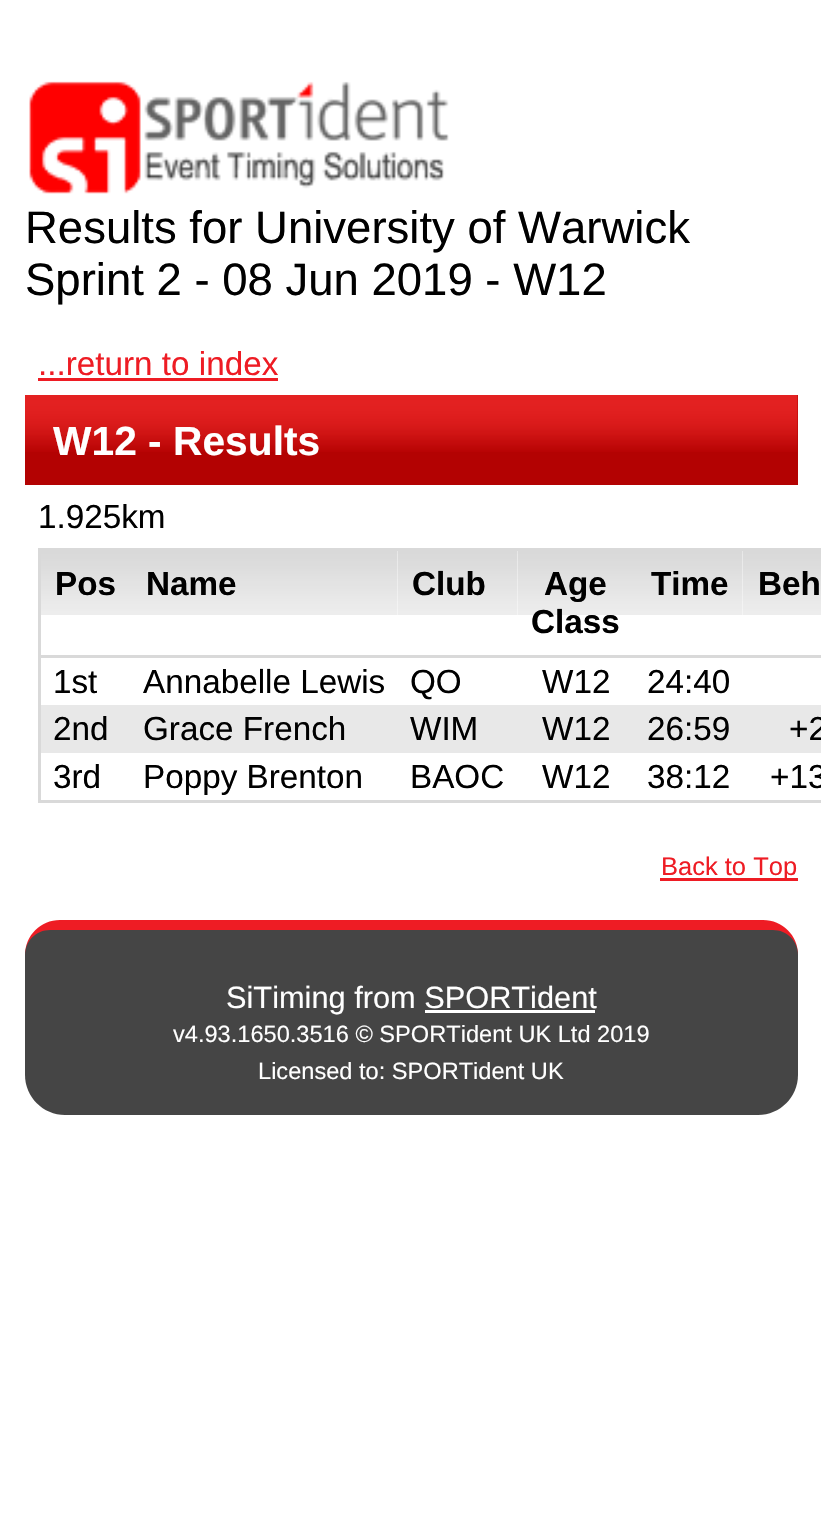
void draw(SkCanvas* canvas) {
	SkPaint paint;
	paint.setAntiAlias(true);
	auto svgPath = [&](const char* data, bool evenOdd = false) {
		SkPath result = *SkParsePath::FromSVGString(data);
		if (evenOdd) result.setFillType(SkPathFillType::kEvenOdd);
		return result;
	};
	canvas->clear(0xffffffff);
	canvas->drawImageRect(SkImages::DeferredFromEncodedData(SkData::MakeFromFileName("img1.png")), SkRect::MakeXYWH(29, 81, 420, 113), SkSamplingOptions());
	SkFont f1(fontMgr->matchFamilyStyle("Liberation Sans", SkFontStyle::Normal()), 45.5);
	f1.setSubpixel(true);
	paint.setColor(0xff000000);
	canvas->drawString("Results for University of Warwick", 25, 243, f1, paint);
	canvas->drawString("Sprint 2 - 08 Jun 2019 - W12", 25, 295, f1, paint);
	SkFont f2(fontMgr->matchFamilyStyle("Liberation Sans", SkFontStyle::Normal()), 33.25);
	f2.setSubpixel(true);
	paint.setColor(0xffee1c24);
	canvas->drawString("...return to index", 38, 375, f2, paint);
	canvas->drawRect(SkRect::MakeXYWH(38, 378, 240, 3), paint);
	paint.setColor(0xffb30202);
	canvas->drawRect(SkRect::MakeXYWH(25, 395, 773, 90), paint);
	canvas->drawImageRect(SkImages::DeferredFromEncodedData(SkData::MakeFromFileName("img2.png")), SkRect::MakeXYWH(25, 395, 773, 57), SkSamplingOptions());
	SkFont f3(fontMgr->matchFamilyStyle("Liberation Sans", SkFontStyle::Bold()), 40.75);
	f3.setSubpixel(true);
	paint.setColor(0xffffffff);
	canvas->drawString("W12 - Results", 53, 455, f3, paint);
	paint.setColor(0xff000000);
	canvas->drawString("1.925km", 38, 528, f2, paint);
	paint.setColor(0xffd9d9d9);
	canvas->drawRect(SkRect::MakeXYWH(38, 548, 783, 3), paint);
	canvas->drawRect(SkRect::MakeXYWH(38, 800, 783, 3), paint);
	canvas->drawRect(SkRect::MakeXYWH(38, 548, 3, 255), paint);
	canvas->drawImageRect(SkImages::DeferredFromEncodedData(SkData::MakeFromFileName("img3.png")), SkRect::MakeXYWH(41, 551, 89, 104), SkSamplingOptions());
	SkFont f4(fontMgr->matchFamilyStyle("Liberation Sans", SkFontStyle::Bold()), 33.25);
	f4.setSubpixel(true);
	paint.setColor(0xff000000);
	canvas->drawString("Pos", 55, 595, f4, paint);
	canvas->drawImageRect(SkImages::DeferredFromEncodedData(SkData::MakeFromFileName("img4.png")), SkRect::MakeXYWH(130, 551, 268, 104), SkSamplingOptions());
	canvas->drawString("Name", 146, 595, f4, paint);
	canvas->drawImageRect(SkImages::DeferredFromEncodedData(SkData::MakeFromFileName("img5.png")), SkRect::MakeXYWH(397, 551, 121, 104), SkSamplingOptions());
	canvas->drawString("Club", 412, 595, f4, paint);
	canvas->drawImageRect(SkImages::DeferredFromEncodedData(SkData::MakeFromFileName("img6.png")), SkRect::MakeXYWH(517, 551, 118, 104), SkSamplingOptions());
	canvas->drawString("Age", 544, 595, f4, paint);
	canvas->drawString("Class", 531, 633, f4, paint);
	canvas->drawImageRect(SkImages::DeferredFromEncodedData(SkData::MakeFromFileName("img7.png")), SkRect::MakeXYWH(635, 551, 108, 104), SkSamplingOptions());
	canvas->drawString("Time", 651, 595, f4, paint);
	canvas->drawImageRect(SkImages::DeferredFromEncodedData(SkData::MakeFromFileName("img8.png")), SkRect::MakeXYWH(742, 551, 79, 104), SkSamplingOptions());
	paint.setColor(0xffd9d9d9);
	canvas->drawRect(SkRect::MakeXYWH(38, 655, 783, 3), paint);
	paint.setColor(0xff000000);
	canvas->drawString("Beh", 758, 595, f4, paint);
	canvas->drawString("1st", 53, 693, f2, paint);
	canvas->drawString("Annabelle Lewis", 143, 693, f2, paint);
	canvas->drawString("QO", 410, 693, f2, paint);
	canvas->drawString("W12", 542, 693, f2, paint);
	canvas->drawString("24:40", 647, 693, f2, paint);
	paint.setColor(0xffe8e8e8);
	canvas->drawRect(SkRect::MakeXYWH(41, 705, 780, 48), paint);
	paint.setColor(0xff000000);
	canvas->drawString("2nd", 53, 740, f2, paint);
	canvas->drawString("Grace French", 143, 740, f2, paint);
	canvas->drawString("WIM", 410, 740, f2, paint);
	canvas->drawString("W12", 542, 740, f2, paint);
	canvas->drawString("26:59", 647, 740, f2, paint);
	canvas->drawString("+2", 789, 740, f2, paint);
	canvas->drawString("3rd", 53, 788, f2, paint);
	canvas->drawString("Poppy Brenton", 143, 788, f2, paint);
	canvas->drawString("BAOC", 410, 788, f2, paint);
	canvas->drawString("W12", 542, 788, f2, paint);
	canvas->drawString("38:12", 647, 788, f2, paint);
	canvas->drawString("+13", 770, 788, f2, paint);
	paint.setColor(0xffee1c24);
	canvas->drawRect(SkRect::MakeXYWH(660, 878, 138, 3), paint);
	SkFont f5(fontMgr->matchFamilyStyle("Liberation Sans", SkFontStyle::Normal()), 25.5);
	f5.setSubpixel(true);
	canvas->drawString("Back to Top", 661, 875, f5, paint);
	canvas->drawPath(svgPath("M60 920H763C782.5 920 798 935.5 798 955H25C25 935.5 40.5 920 60 920Z"), paint);
	paint.setColor(0xff454545);
	canvas->drawPath(svgPath("M50 930H773C787 930 798 941 798 955H25C25 941 36 930 50 930Z"), paint);
	canvas->drawPath(svgPath("M25 955H798V1075C798 1097 780 1115 758 1115H65C43 1115 25 1097 25 1075Z"), paint);
	SkFont f6(fontMgr->matchFamilyStyle("Liberation Sans", SkFontStyle::Normal()), 30.75);
	f6.setSubpixel(true);
	paint.setColor(0xffffffff);
	canvas->drawString("SiTiming from SPORTident", 226, 1008, f6, paint);
	canvas->drawRect(SkRect::MakeXYWH(425, 1010, 170, 3), paint);
	SkFont f7(fontMgr->matchFamilyStyle("Liberation Sans", SkFontStyle::Normal()), 23.6);
	f7.setSubpixel(true);
	canvas->drawString("v4.93.1650.3516 © SPORTident UK Ltd 2019", 173, 1042, f7, paint);
	canvas->drawString("Licensed to: SPORTident UK", 258, 1079, f7, paint);
}
